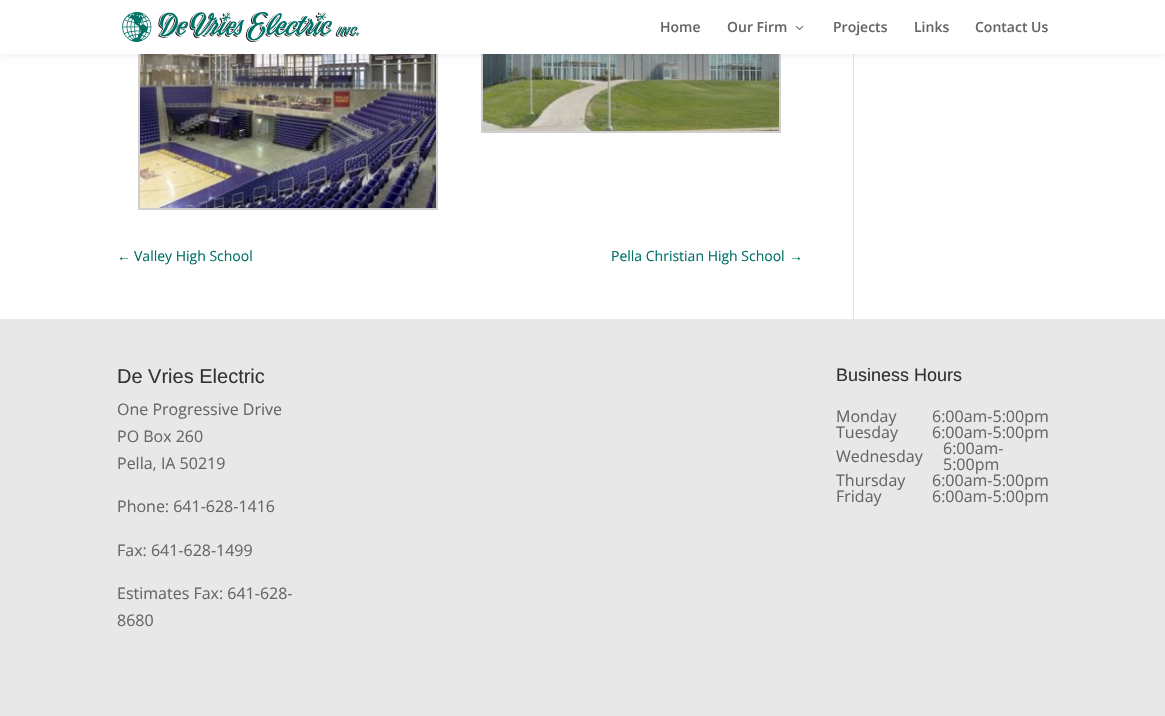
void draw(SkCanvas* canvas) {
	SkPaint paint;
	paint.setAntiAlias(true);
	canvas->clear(0xffffffff);
	paint.setStroke(true);
	paint.setStrokeWidth(2);
	paint.setColor(0xffcfcfcf);
	canvas->drawRect(SkRect::MakeXYWH(139, -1, 298, 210), paint);
	canvas->drawImageRect(SkImages::DeferredFromEncodedData(SkData::MakeFromFileName("img3.png")), SkRect::MakeXYWH(140, 54, 296, 154), SkSamplingOptions());
	canvas->drawRect(SkRect::MakeXYWH(482, -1, 298, 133), paint);
	canvas->drawImageRect(SkImages::DeferredFromEncodedData(SkData::MakeFromFileName("img4.png")), SkRect::MakeXYWH(483, 54, 296, 77), SkSamplingOptions());
	paint.setStroke(false);
	paint.setColor(0xffe2e2e2);
	canvas->drawRect(SkRect::MakeXYWH(853, 54, 1, 265), paint);
	paint.setColor(0x1a000000);
	paint.setMaskFilter(SkMaskFilter::MakeBlur(kNormal_SkBlurStyle, 3.5));
	canvas->drawRect(SkRect::MakeXYWH(0, 0, 1165, 54), paint);
	paint.setMaskFilter(nullptr);
	paint.setColor(0xffffffff);
	canvas->drawRect(SkRect::MakeXYWH(0, 0, 1165, 54), paint);
	canvas->drawImageRect(SkImages::DeferredFromEncodedData(SkData::MakeFromFileName("img1.png")), SkRect::MakeXYWH(122, 12, 237, 30), SkSamplingOptions());
	SkFont f1(fontMgr->matchFamilyStyle("Open Sans", SkFontStyle(600, SkFontStyle::kNormal_Width, SkFontStyle::kUpright_Slant)), 14);
	f1.setSubpixel(true);
	paint.setColor(0xff666666);
	canvas->drawString("Home", 660, 32, f1, paint);
	canvas->drawString("Our Firm", 727, 32, f1, paint);
	canvas->drawImageRect(SkImages::DeferredFromEncodedData(SkData::MakeFromFileName("img2.png")), SkRect::MakeXYWH(795, 25, 9, 5), SkSamplingOptions());
	canvas->drawString("Projects", 833, 32, f1, paint);
	canvas->drawString("Links", 914, 32, f1, paint);
	canvas->drawString("Contact Us", 975, 32, f1, paint);
	SkFont f2(fontMgr->matchFamilyStyle("Liberation Sans", SkFontStyle::Normal()), 14);
	f2.setSubpixel(true);
	paint.setColor(0xff007167);
	canvas->drawString("←", 117, 261, f2, paint);
	SkFont f3(fontMgr->matchFamilyStyle("Open Sans", SkFontStyle::Normal()), 14);
	f3.setSubpixel(true);
	canvas->drawString("Valley High School", 134, 261, f3, paint);
	canvas->drawString("Pella Christian High School", 611, 261, f3, paint);
	canvas->drawString("→", 789, 261, f2, paint);
	paint.setColor(0xffe8e8e8);
	canvas->drawRect(SkRect::MakeXYWH(0, 319, 1165, 397), paint);
	SkFont f4(fontMgr->matchFamilyStyle("Liberation Sans", SkFontStyle::Normal()), 20);
	f4.setSubpixel(true);
	paint.setColor(0xff333333);
	canvas->drawString("De Vries Electric", 117, 383, f4, paint);
	SkFont f5(fontMgr->matchFamilyStyle("Open Sans", SkFontStyle::Normal()), 16);
	f5.setSubpixel(true);
	paint.setColor(0xff666666);
	canvas->drawString("One Progressive Drive", 117, 415, f5, paint);
	canvas->drawString("PO Box 260", 117, 442, f5, paint);
	canvas->drawString("Pella, IA 50219", 117, 469, f5, paint);
	canvas->drawString("Phone: 641-628-1416", 117, 512, f5, paint);
	canvas->drawString("Fax: 641-628-1499", 117, 556, f5, paint);
	canvas->drawString("Estimates Fax: 641-628-", 117, 599, f5, paint);
	canvas->drawString("8680", 117, 626, f5, paint);
	SkFont f6(fontMgr->matchFamilyStyle("Liberation Sans", SkFontStyle::Normal()), 18);
	f6.setSubpixel(true);
	paint.setColor(0xff333333);
	canvas->drawString("Business Hours", 836, 381, f6, paint);
	paint.setColor(0xff666666);
	canvas->drawString("Monday", 836, 422, f5, paint);
	canvas->drawString("6:00am-5:00pm", 932, 422, f5, paint);
	canvas->drawString("Tuesday", 836, 438, f5, paint);
	canvas->drawString("6:00am-5:00pm", 932, 438, f5, paint);
	canvas->drawString("Wednesday", 836, 462, f5, paint);
	canvas->drawString("6:00am-", 943, 454, f5, paint);
	canvas->drawString("5:00pm", 943, 470, f5, paint);
	canvas->drawString("Thursday", 836, 486, f5, paint);
	canvas->drawString("6:00am-5:00pm", 932, 486, f5, paint);
	canvas->drawString("Friday", 836, 502, f5, paint);
	canvas->drawString("6:00am-5:00pm", 932, 502, f5, paint);
}
